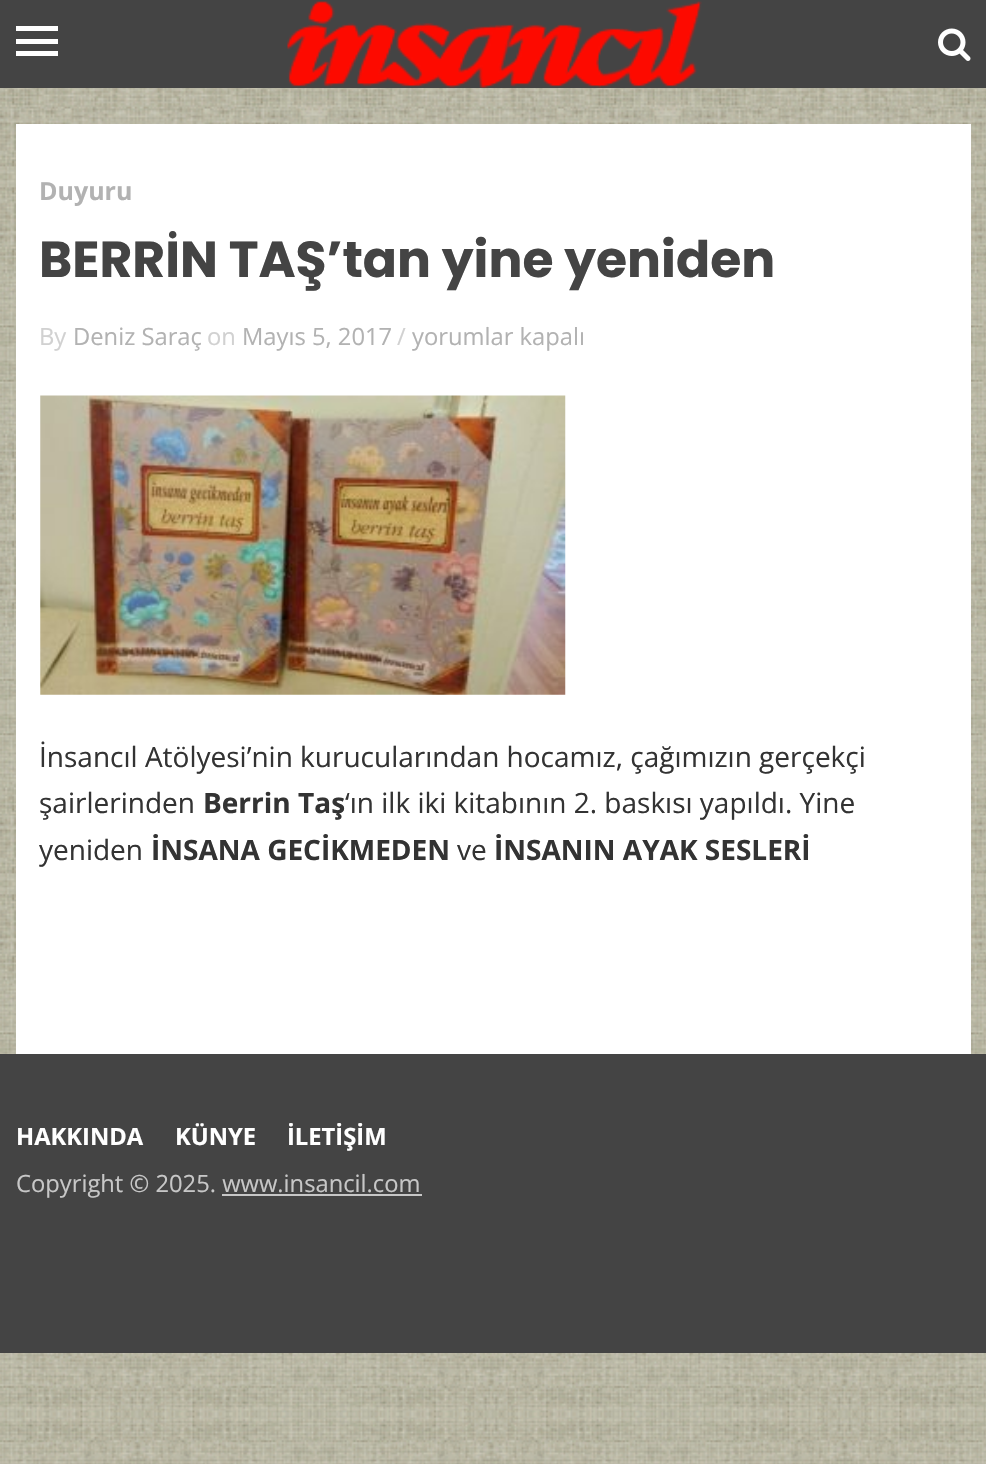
void draw(SkCanvas* canvas) {
	SkPaint paint;
	paint.setAntiAlias(true);
	canvas->clear(0xffffffff);
	canvas->drawImageRect(SkImages::DeferredFromEncodedData(SkData::MakeFromFileName("img1.png")), SkRect::MakeXYWH(0, 88, 986, 1376), SkSamplingOptions());
	paint.setColor(0xff444444);
	canvas->drawRect(SkRect::MakeXYWH(0, 0, 986, 88), paint);
	paint.setColor(0xffffffff);
	canvas->drawRect(SkRect::MakeXYWH(16, 26, 42, 5), paint);
	canvas->drawRect(SkRect::MakeXYWH(16, 39, 42, 5), paint);
	canvas->drawRect(SkRect::MakeXYWH(16, 51, 42, 5), paint);
	canvas->drawImageRect(SkImages::DeferredFromEncodedData(SkData::MakeFromFileName("img2.png")), SkRect::MakeXYWH(287, 1, 415, 87), SkSamplingOptions());
	canvas->drawImageRect(SkImages::DeferredFromEncodedData(SkData::MakeFromFileName("img3.png")), SkRect::MakeXYWH(938, 28, 33, 33), SkSamplingOptions());
	canvas->drawRect(SkRect::MakeXYWH(16, 124, 955, 930), paint);
	SkFont f1(fontMgr->matchFamilyStyle("Open Sans", SkFontStyle::Bold()), 25);
	f1.setSubpixel(true);
	paint.setColor(0xffb2b2b2);
	canvas->drawString("Duyuru", 39, 200, f1, paint);
	SkFont f2(fontMgr->matchFamilyStyle("Poppins", SkFontStyle::Bold()), 50.4);
	f2.setSubpixel(true);
	paint.setColor(0xff444444);
	canvas->drawString("BERRİN TAŞ’tan yine yeniden", 39, 277, f2, paint);
	SkFont f3(fontMgr->matchFamilyStyle("Open Sans", SkFontStyle::Normal()), 23.75);
	f3.setSubpixel(true);
	paint.setColor(0xffd1d1d1);
	canvas->drawString("By", 39, 345, f3, paint);
	paint.setColor(0xffb2b2b2);
	canvas->drawString("Deniz Saraç", 73, 345, f3, paint);
	paint.setColor(0xffd1d1d1);
	canvas->drawString("on", 207, 345, f3, paint);
	paint.setColor(0xffb2b2b2);
	canvas->drawString("Mayıs 5, 2017", 242, 345, f3, paint);
	paint.setColor(0xffd1d1d1);
	canvas->drawString("/", 397, 345, f3, paint);
	paint.setColor(0xffb2b2b2);
	canvas->drawString("yorumlar kapalı", 412, 345, f3, paint);
	canvas->drawImageRect(SkImages::DeferredFromEncodedData(SkData::MakeFromFileName("img4.png")), SkRect::MakeXYWH(40, 395, 526, 300), SkSamplingOptions());
	SkFont f4(fontMgr->matchFamilyStyle("Open Sans", SkFontStyle::Normal()), 28);
	f4.setSubpixel(true);
	paint.setColor(0xff333333);
	canvas->drawString("İnsancıl Atölyesi’nin kurucularından hocamız, çağımızın gerçekçi", 39, 767, f4, paint);
	canvas->drawString("şairlerinden", 39, 813, f4, paint);
	SkFont f5(fontMgr->matchFamilyStyle("Open Sans", SkFontStyle::Bold()), 28);
	f5.setSubpixel(true);
	canvas->drawString("Berrin Taş", 203, 813, f5, paint);
	canvas->drawString("‘ın ilk iki kitabının 2. baskısı yapıldı. Yine", 345, 813, f4, paint);
	canvas->drawString("yeniden", 39, 860, f4, paint);
	canvas->drawString("İNSANA GECİKMEDEN", 151, 860, f5, paint);
	canvas->drawString("ve", 457, 860, f4, paint);
	canvas->drawString("İNSANIN AYAK SESLERİ", 494, 860, f5, paint);
	paint.setColor(0xff444444);
	canvas->drawRect(SkRect::MakeXYWH(0, 1054, 986, 299), paint);
	SkFont f6(fontMgr->matchFamilyStyle("Open Sans", SkFontStyle::Bold()), 23.75);
	f6.setSubpixel(true);
	paint.setColor(0xffffffff);
	canvas->drawString("HAKKINDA", 16, 1145, f6, paint);
	canvas->drawString("KÜNYE", 175, 1145, f6, paint);
	canvas->drawString("İLETİŞİM", 287, 1145, f6, paint);
	paint.setColor(0xffc7c7c7);
	canvas->drawString("Copyright © 2025. www.insancil.com", 16, 1192, f3, paint);
	canvas->drawRect(SkRect::MakeXYWH(222, 1194, 200, 2), paint);
}
